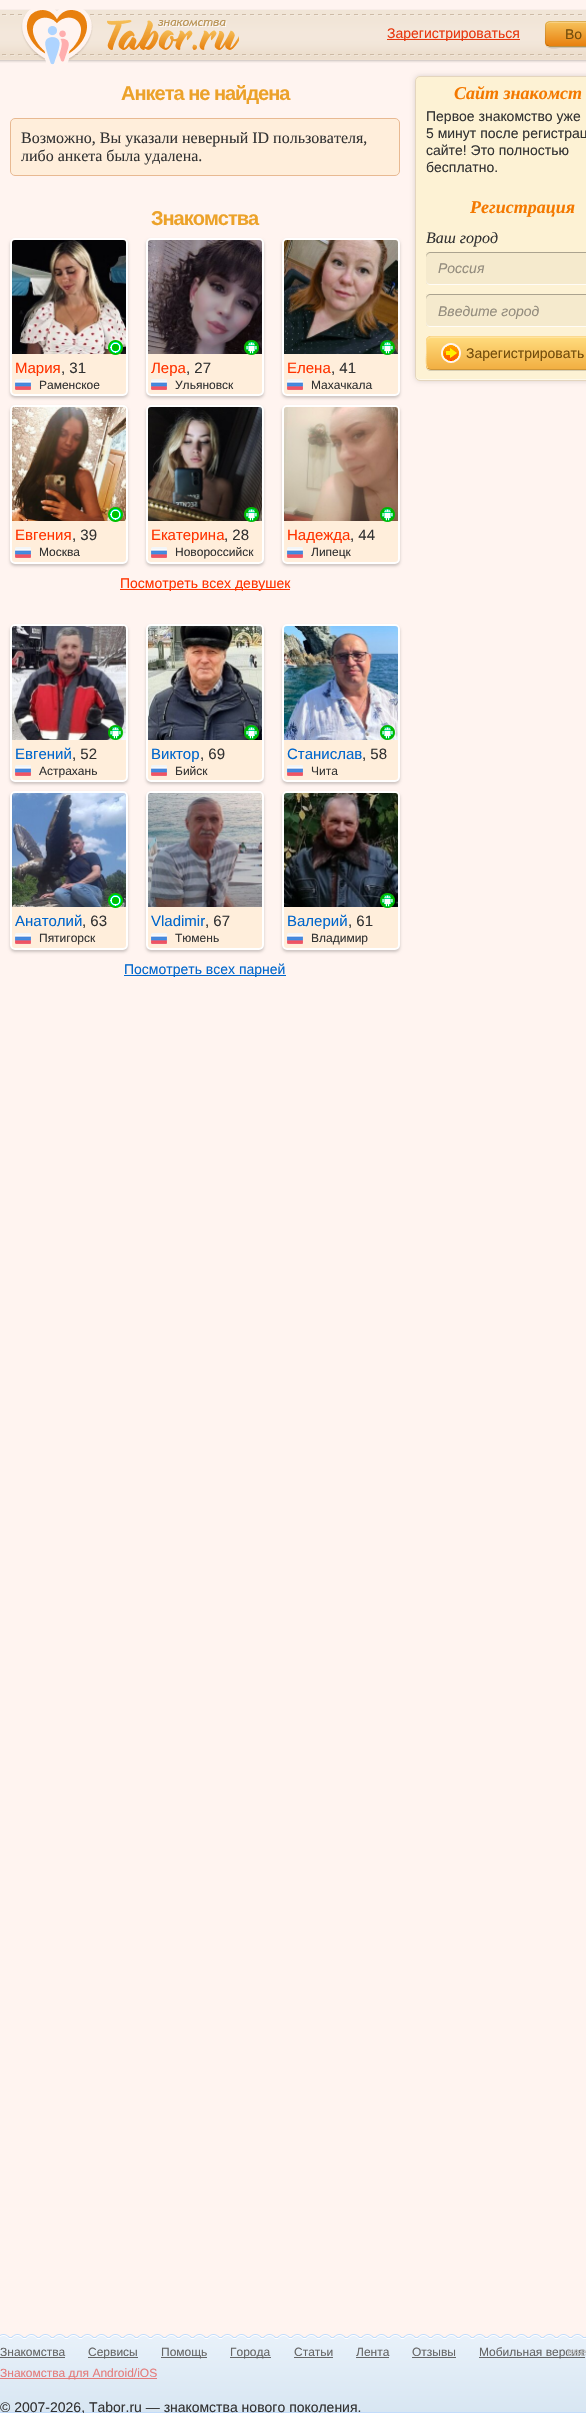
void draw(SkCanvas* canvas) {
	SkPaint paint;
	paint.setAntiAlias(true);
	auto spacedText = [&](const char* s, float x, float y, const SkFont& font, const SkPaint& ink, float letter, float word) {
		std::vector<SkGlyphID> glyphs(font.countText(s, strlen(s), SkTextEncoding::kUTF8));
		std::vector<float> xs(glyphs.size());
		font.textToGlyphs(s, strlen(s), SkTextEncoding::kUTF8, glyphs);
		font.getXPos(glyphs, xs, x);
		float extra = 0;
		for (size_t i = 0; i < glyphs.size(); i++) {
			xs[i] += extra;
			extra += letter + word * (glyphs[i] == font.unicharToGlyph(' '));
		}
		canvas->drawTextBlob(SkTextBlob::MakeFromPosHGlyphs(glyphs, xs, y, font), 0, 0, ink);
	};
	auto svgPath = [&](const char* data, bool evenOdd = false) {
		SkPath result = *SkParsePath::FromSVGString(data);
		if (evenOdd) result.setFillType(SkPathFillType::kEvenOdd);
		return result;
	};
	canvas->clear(0xfffff4f0);
	canvas->drawImageRect(SkImages::DeferredFromEncodedData(SkData::MakeFromFileName("img1.png")), SkRect::MakeXYWH(0, 9, 586, 54), SkSamplingOptions());
	canvas->drawImageRect(SkImages::DeferredFromEncodedData(SkData::MakeFromFileName("img2.png")), SkRect::MakeXYWH(21, 9, 218, 56), SkSamplingOptions());
	paint.setColor(0xffe8380f);
	canvas->drawRect(SkRect::MakeXYWH(387, 39, 133, 1), paint);
	SkFont f1(fontMgr->matchFamilyStyle("Liberation Sans", SkFontStyle::Normal()), 14);
	f1.setSubpixel(true);
	canvas->drawString("Зарегистрироваться", 387, 38, f1, paint);
	paint.setColor(0xffccc1b5);
	canvas->drawPath(svgPath("M545 42C545 51 556 48 562 48H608C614 48 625 51 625 42C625 45 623 47 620 47H550C547 47 545 45 545 42Z"), paint);
	paint.setColor(0xfff6c25b);
	canvas->drawRoundRect(SkRect::MakeXYWH(545, 21, 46, 26), 5, 5, paint);
	canvas->save();
	canvas->clipPath(svgPath("M550 21H620C623 21 625 23 625 26V42C625 45 623 47 620 47H550C547 47 545 45 545 42V26C545 23 547 21 550 21Z"), true);
	{
		const SkColor colors[] = {0xfff6c25b, 0xffe8800f};
		const float stops[] = {0, 1};
		const SkPoint ends[] = {{585, 22}, {585, 46}};
		paint.setShader(SkGradientShader::MakeLinear(ends, colors, stops, 2, SkTileMode::kClamp));
		paint.setAlpha(255);
	}
	canvas->drawRect(SkRect::MakeXYWH(545, 22, 41, 24), paint);
	canvas->restore();
	paint.setShader(nullptr);
	paint.setColor(0x40ffffff);
	canvas->drawPath(svgPath("M550 23H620C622 23 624 25 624 27C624 19 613 22 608 22H562C557 22 546 19 546 27C546 25 548 23 550 23Z"), paint);
	paint.setStroke(true);
	paint.setStrokeWidth(1);
	paint.setColor(0x40000000);
	canvas->drawPath(svgPath("M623 45L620.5 46.5H549.5L547 45"), paint);
	paint.setColor(0x1a000000);
	canvas->drawPath(svgPath("M547 45C544.5 43 545.5 39.5 545.5 36.5C545.5 20 544 21.5 561.5 21.5H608.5C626 21.5 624.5 20 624.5 36.5C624.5 39.5 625.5 43 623 45"), paint);
	paint.setStroke(false);
	paint.setColor(0xff734d0c);
	canvas->drawString("Во", 565, 39, f1, paint);
	SkFont f2(fontMgr->matchFamilyStyle("Liberation Sans", SkFontStyle::Bold()), 20);
	f2.setSubpixel(true);
	paint.setColor(0xffeca22a);
	spacedText("Анкета не найдена", 121, 100, f2, paint, -1, 0);
	paint.setColor(0xffffeedb);
	canvas->drawRoundRect(SkRect::MakeXYWH(10.5, 118.5, 389, 57), 4.5, 4.5, paint);
	paint.setStroke(true);
	paint.setColor(0xffe8b992);
	canvas->drawRoundRect(SkRect::MakeXYWH(10.5, 118.5, 389, 57), 4.5, 4.5, paint);
	SkFont f3(fontMgr->matchFamilyStyle("Liberation Serif", SkFontStyle::Normal()), 16);
	f3.setSubpixel(true);
	paint.setStroke(false);
	paint.setColor(0xff333333);
	canvas->drawString("Возможно, Вы указали неверный ID пользователя,", 21, 143, f3, paint);
	canvas->drawString("либо анкета была удалена.", 21, 161, f3, paint);
	paint.setColor(0xffeca22a);
	spacedText("Знакомства", 151, 225, f2, paint, -1, 0);
	paint.setColor(0x33000000);
	paint.setMaskFilter(SkMaskFilter::MakeBlur(kNormal_SkBlurStyle, 1.5));
	canvas->drawRoundRect(SkRect::MakeXYWH(10, 240, 118, 158), 5, 5, paint);
	paint.setMaskFilter(nullptr);
	paint.setColor(0xffffeedb);
	canvas->drawRoundRect(SkRect::MakeXYWH(11, 239, 116, 156), 4, 4, paint);
	paint.setStroke(true);
	paint.setStrokeWidth(2);
	paint.setColor(0xffffffff);
	canvas->drawRoundRect(SkRect::MakeXYWH(11, 239, 116, 156), 4, 4, paint);
	canvas->drawImageRect(SkImages::DeferredFromEncodedData(SkData::MakeFromFileName("img3.png")), SkRect::MakeXYWH(12, 240, 114, 114), SkSamplingOptions());
	canvas->drawImageRect(SkImages::DeferredFromEncodedData(SkData::MakeFromFileName("img4.png")), SkRect::MakeXYWH(108, 340, 15, 15), SkSamplingOptions());
	SkFont f4(fontMgr->matchFamilyStyle("Liberation Sans", SkFontStyle::Normal()), 15);
	f4.setSubpixel(true);
	paint.setStroke(false);
	paint.setColor(0xffff3300);
	canvas->drawString("Мария", 15, 373, f4, paint);
	paint.setColor(0xff333333);
	canvas->drawString(", 31", 61, 373, f4, paint);
	canvas->drawImageRect(SkImages::DeferredFromEncodedData(SkData::MakeFromFileName("img5.png")), SkRect::MakeXYWH(15, 379, 16, 11), SkSamplingOptions());
	SkFont f5(fontMgr->matchFamilyStyle("Liberation Sans", SkFontStyle::Normal()), 12);
	f5.setSubpixel(true);
	canvas->drawString("Раменское", 39, 389, f5, paint);
	paint.setColor(0x33000000);
	paint.setMaskFilter(SkMaskFilter::MakeBlur(kNormal_SkBlurStyle, 1.5));
	canvas->drawRoundRect(SkRect::MakeXYWH(146, 240, 118, 158), 5, 5, paint);
	paint.setMaskFilter(nullptr);
	paint.setColor(0xffffeedb);
	canvas->drawRoundRect(SkRect::MakeXYWH(147, 239, 116, 156), 4, 4, paint);
	paint.setStroke(true);
	paint.setColor(0xffffffff);
	canvas->drawRoundRect(SkRect::MakeXYWH(147, 239, 116, 156), 4, 4, paint);
	canvas->drawImageRect(SkImages::DeferredFromEncodedData(SkData::MakeFromFileName("img6.png")), SkRect::MakeXYWH(148, 240, 114, 114), SkSamplingOptions());
	canvas->drawImageRect(SkImages::DeferredFromEncodedData(SkData::MakeFromFileName("img7.png")), SkRect::MakeXYWH(244, 340, 15, 15), SkSamplingOptions());
	paint.setStroke(false);
	paint.setColor(0xffff3300);
	canvas->drawString("Лера", 151, 373, f4, paint);
	paint.setColor(0xff333333);
	canvas->drawString(", 27", 186, 373, f4, paint);
	canvas->drawImageRect(SkImages::DeferredFromEncodedData(SkData::MakeFromFileName("img5.png")), SkRect::MakeXYWH(151, 379, 16, 11), SkSamplingOptions());
	canvas->drawString("Ульяновск", 175, 389, f5, paint);
	paint.setColor(0x33000000);
	paint.setMaskFilter(SkMaskFilter::MakeBlur(kNormal_SkBlurStyle, 1.5));
	canvas->drawRoundRect(SkRect::MakeXYWH(282, 240, 118, 158), 5, 5, paint);
	paint.setMaskFilter(nullptr);
	paint.setColor(0xffffeedb);
	canvas->drawRoundRect(SkRect::MakeXYWH(283, 239, 116, 156), 4, 4, paint);
	paint.setStroke(true);
	paint.setColor(0xffffffff);
	canvas->drawRoundRect(SkRect::MakeXYWH(283, 239, 116, 156), 4, 4, paint);
	canvas->drawImageRect(SkImages::DeferredFromEncodedData(SkData::MakeFromFileName("img8.png")), SkRect::MakeXYWH(284, 240, 114, 114), SkSamplingOptions());
	canvas->drawImageRect(SkImages::DeferredFromEncodedData(SkData::MakeFromFileName("img9.png")), SkRect::MakeXYWH(380, 340, 15, 15), SkSamplingOptions());
	paint.setStroke(false);
	paint.setColor(0xffff3300);
	canvas->drawString("Елена", 287, 373, f4, paint);
	paint.setColor(0xff333333);
	canvas->drawString(", 41", 331, 373, f4, paint);
	canvas->drawImageRect(SkImages::DeferredFromEncodedData(SkData::MakeFromFileName("img5.png")), SkRect::MakeXYWH(287, 379, 16, 11), SkSamplingOptions());
	canvas->drawString("Махачкала", 311, 389, f5, paint);
	paint.setColor(0x33000000);
	paint.setMaskFilter(SkMaskFilter::MakeBlur(kNormal_SkBlurStyle, 1.5));
	canvas->drawRoundRect(SkRect::MakeXYWH(10, 407, 118, 159), 5, 5, paint);
	paint.setMaskFilter(nullptr);
	paint.setColor(0xffffeedb);
	canvas->drawRoundRect(SkRect::MakeXYWH(11, 406, 116, 157), 4, 4, paint);
	paint.setStroke(true);
	paint.setColor(0xffffffff);
	canvas->drawRoundRect(SkRect::MakeXYWH(11, 406, 116, 157), 4, 4, paint);
	canvas->drawImageRect(SkImages::DeferredFromEncodedData(SkData::MakeFromFileName("img10.png")), SkRect::MakeXYWH(12, 407, 114, 114), SkSamplingOptions());
	canvas->drawImageRect(SkImages::DeferredFromEncodedData(SkData::MakeFromFileName("img11.png")), SkRect::MakeXYWH(108, 507, 15, 15), SkSamplingOptions());
	paint.setStroke(false);
	paint.setColor(0xffff3300);
	canvas->drawString("Евгения", 15, 540, f4, paint);
	paint.setColor(0xff333333);
	canvas->drawString(", 39", 72, 540, f4, paint);
	canvas->drawImageRect(SkImages::DeferredFromEncodedData(SkData::MakeFromFileName("img5.png")), SkRect::MakeXYWH(15, 547, 16, 11), SkSamplingOptions());
	canvas->drawString("Москва", 39, 556, f5, paint);
	paint.setColor(0x33000000);
	paint.setMaskFilter(SkMaskFilter::MakeBlur(kNormal_SkBlurStyle, 1.5));
	canvas->drawRoundRect(SkRect::MakeXYWH(146, 407, 118, 159), 5, 5, paint);
	paint.setMaskFilter(nullptr);
	paint.setColor(0xffffeedb);
	canvas->drawRoundRect(SkRect::MakeXYWH(147, 406, 116, 157), 4, 4, paint);
	paint.setStroke(true);
	paint.setColor(0xffffffff);
	canvas->drawRoundRect(SkRect::MakeXYWH(147, 406, 116, 157), 4, 4, paint);
	canvas->drawImageRect(SkImages::DeferredFromEncodedData(SkData::MakeFromFileName("img12.png")), SkRect::MakeXYWH(148, 407, 114, 114), SkSamplingOptions());
	canvas->drawImageRect(SkImages::DeferredFromEncodedData(SkData::MakeFromFileName("img13.png")), SkRect::MakeXYWH(244, 507, 15, 15), SkSamplingOptions());
	paint.setStroke(false);
	paint.setColor(0xffff3300);
	canvas->drawString("Екатерина", 151, 540, f4, paint);
	paint.setColor(0xff333333);
	canvas->drawString(", 28", 224, 540, f4, paint);
	canvas->drawImageRect(SkImages::DeferredFromEncodedData(SkData::MakeFromFileName("img5.png")), SkRect::MakeXYWH(151, 547, 16, 11), SkSamplingOptions());
	canvas->drawString("Новороссийск", 175, 556, f5, paint);
	paint.setColor(0x33000000);
	paint.setMaskFilter(SkMaskFilter::MakeBlur(kNormal_SkBlurStyle, 1.5));
	canvas->drawRoundRect(SkRect::MakeXYWH(282, 407, 118, 159), 5, 5, paint);
	paint.setMaskFilter(nullptr);
	paint.setColor(0xffffeedb);
	canvas->drawRoundRect(SkRect::MakeXYWH(283, 406, 116, 157), 4, 4, paint);
	paint.setStroke(true);
	paint.setColor(0xffffffff);
	canvas->drawRoundRect(SkRect::MakeXYWH(283, 406, 116, 157), 4, 4, paint);
	canvas->drawImageRect(SkImages::DeferredFromEncodedData(SkData::MakeFromFileName("img14.png")), SkRect::MakeXYWH(284, 407, 114, 114), SkSamplingOptions());
	canvas->drawImageRect(SkImages::DeferredFromEncodedData(SkData::MakeFromFileName("img15.png")), SkRect::MakeXYWH(380, 507, 15, 15), SkSamplingOptions());
	paint.setStroke(false);
	paint.setColor(0xffff3300);
	canvas->drawString("Надежда", 287, 540, f4, paint);
	paint.setColor(0xff333333);
	canvas->drawString(", 44", 350, 540, f4, paint);
	canvas->drawImageRect(SkImages::DeferredFromEncodedData(SkData::MakeFromFileName("img5.png")), SkRect::MakeXYWH(287, 547, 16, 11), SkSamplingOptions());
	canvas->drawString("Липецк", 311, 556, f5, paint);
	paint.setColor(0xffff3300);
	canvas->drawRect(SkRect::MakeXYWH(120, 589, 170, 1), paint);
	canvas->drawString("Посмотреть всех девушек", 120, 588, f1, paint);
	paint.setColor(0x33000000);
	paint.setMaskFilter(SkMaskFilter::MakeBlur(kNormal_SkBlurStyle, 1.5));
	canvas->drawRoundRect(SkRect::MakeXYWH(10, 626, 118, 158), 5, 5, paint);
	paint.setMaskFilter(nullptr);
	paint.setColor(0xffffeedb);
	canvas->drawRoundRect(SkRect::MakeXYWH(11, 625, 116, 156), 4, 4, paint);
	paint.setStroke(true);
	paint.setColor(0xffffffff);
	canvas->drawRoundRect(SkRect::MakeXYWH(11, 625, 116, 156), 4, 4, paint);
	canvas->drawImageRect(SkImages::DeferredFromEncodedData(SkData::MakeFromFileName("img16.png")), SkRect::MakeXYWH(12, 626, 114, 114), SkSamplingOptions());
	canvas->drawImageRect(SkImages::DeferredFromEncodedData(SkData::MakeFromFileName("img17.png")), SkRect::MakeXYWH(108, 725, 15, 15), SkSamplingOptions());
	paint.setStroke(false);
	paint.setColor(0xff0066cc);
	canvas->drawString("Евгений", 15, 759, f4, paint);
	paint.setColor(0xff333333);
	canvas->drawString(", 52", 72, 759, f4, paint);
	canvas->drawImageRect(SkImages::DeferredFromEncodedData(SkData::MakeFromFileName("img5.png")), SkRect::MakeXYWH(15, 765, 16, 11), SkSamplingOptions());
	canvas->drawString("Астрахань", 39, 775, f5, paint);
	paint.setColor(0x33000000);
	paint.setMaskFilter(SkMaskFilter::MakeBlur(kNormal_SkBlurStyle, 1.5));
	canvas->drawRoundRect(SkRect::MakeXYWH(146, 626, 118, 158), 5, 5, paint);
	paint.setMaskFilter(nullptr);
	paint.setColor(0xffffeedb);
	canvas->drawRoundRect(SkRect::MakeXYWH(147, 625, 116, 156), 4, 4, paint);
	paint.setStroke(true);
	paint.setColor(0xffffffff);
	canvas->drawRoundRect(SkRect::MakeXYWH(147, 625, 116, 156), 4, 4, paint);
	canvas->drawImageRect(SkImages::DeferredFromEncodedData(SkData::MakeFromFileName("img18.png")), SkRect::MakeXYWH(148, 626, 114, 114), SkSamplingOptions());
	canvas->drawImageRect(SkImages::DeferredFromEncodedData(SkData::MakeFromFileName("img19.png")), SkRect::MakeXYWH(244, 725, 15, 15), SkSamplingOptions());
	paint.setStroke(false);
	paint.setColor(0xff0066cc);
	canvas->drawString("Виктор", 151, 759, f4, paint);
	paint.setColor(0xff333333);
	canvas->drawString(", 69", 200, 759, f4, paint);
	canvas->drawImageRect(SkImages::DeferredFromEncodedData(SkData::MakeFromFileName("img5.png")), SkRect::MakeXYWH(151, 765, 16, 11), SkSamplingOptions());
	canvas->drawString("Бийск", 175, 775, f5, paint);
	paint.setColor(0x33000000);
	paint.setMaskFilter(SkMaskFilter::MakeBlur(kNormal_SkBlurStyle, 1.5));
	canvas->drawRoundRect(SkRect::MakeXYWH(282, 626, 118, 158), 5, 5, paint);
	paint.setMaskFilter(nullptr);
	paint.setColor(0xffffeedb);
	canvas->drawRoundRect(SkRect::MakeXYWH(283, 625, 116, 156), 4, 4, paint);
	paint.setStroke(true);
	paint.setColor(0xffffffff);
	canvas->drawRoundRect(SkRect::MakeXYWH(283, 625, 116, 156), 4, 4, paint);
	canvas->drawImageRect(SkImages::DeferredFromEncodedData(SkData::MakeFromFileName("img20.png")), SkRect::MakeXYWH(284, 626, 114, 114), SkSamplingOptions());
	canvas->drawImageRect(SkImages::DeferredFromEncodedData(SkData::MakeFromFileName("img21.png")), SkRect::MakeXYWH(380, 725, 15, 15), SkSamplingOptions());
	paint.setStroke(false);
	paint.setColor(0xff0066cc);
	canvas->drawString("Станислав", 287, 759, f4, paint);
	paint.setColor(0xff333333);
	canvas->drawString(", 58", 362, 759, f4, paint);
	canvas->drawImageRect(SkImages::DeferredFromEncodedData(SkData::MakeFromFileName("img5.png")), SkRect::MakeXYWH(287, 765, 16, 11), SkSamplingOptions());
	canvas->drawString("Чита", 311, 775, f5, paint);
	paint.setColor(0x33000000);
	paint.setMaskFilter(SkMaskFilter::MakeBlur(kNormal_SkBlurStyle, 1.5));
	canvas->drawRoundRect(SkRect::MakeXYWH(10, 793, 118, 159), 5, 5, paint);
	paint.setMaskFilter(nullptr);
	paint.setColor(0xffffeedb);
	canvas->drawRoundRect(SkRect::MakeXYWH(11, 792, 116, 157), 4, 4, paint);
	paint.setStroke(true);
	paint.setColor(0xffffffff);
	canvas->drawRoundRect(SkRect::MakeXYWH(11, 792, 116, 157), 4, 4, paint);
	canvas->drawImageRect(SkImages::DeferredFromEncodedData(SkData::MakeFromFileName("img22.png")), SkRect::MakeXYWH(12, 793, 114, 114), SkSamplingOptions());
	canvas->drawImageRect(SkImages::DeferredFromEncodedData(SkData::MakeFromFileName("img23.png")), SkRect::MakeXYWH(108, 893, 15, 15), SkSamplingOptions());
	paint.setStroke(false);
	paint.setColor(0xff0066cc);
	canvas->drawString("Анатолий", 15, 926, f4, paint);
	paint.setColor(0xff333333);
	canvas->drawString(", 63", 82, 926, f4, paint);
	canvas->drawImageRect(SkImages::DeferredFromEncodedData(SkData::MakeFromFileName("img5.png")), SkRect::MakeXYWH(15, 933, 16, 11), SkSamplingOptions());
	canvas->drawString("Пятигорск", 39, 942, f5, paint);
	paint.setColor(0x33000000);
	paint.setMaskFilter(SkMaskFilter::MakeBlur(kNormal_SkBlurStyle, 1.5));
	canvas->drawRoundRect(SkRect::MakeXYWH(146, 793, 118, 159), 5, 5, paint);
	paint.setMaskFilter(nullptr);
	paint.setColor(0xffffeedb);
	canvas->drawRoundRect(SkRect::MakeXYWH(147, 792, 116, 157), 4, 4, paint);
	paint.setStroke(true);
	paint.setColor(0xffffffff);
	canvas->drawRoundRect(SkRect::MakeXYWH(147, 792, 116, 157), 4, 4, paint);
	canvas->drawImageRect(SkImages::DeferredFromEncodedData(SkData::MakeFromFileName("img24.png")), SkRect::MakeXYWH(148, 793, 114, 114), SkSamplingOptions());
	paint.setStroke(false);
	paint.setColor(0xff0066cc);
	canvas->drawString("Vladimir", 151, 926, f4, paint);
	paint.setColor(0xff333333);
	canvas->drawString(", 67", 205, 926, f4, paint);
	canvas->drawImageRect(SkImages::DeferredFromEncodedData(SkData::MakeFromFileName("img5.png")), SkRect::MakeXYWH(151, 933, 16, 11), SkSamplingOptions());
	canvas->drawString("Тюмень", 175, 942, f5, paint);
	paint.setColor(0x33000000);
	paint.setMaskFilter(SkMaskFilter::MakeBlur(kNormal_SkBlurStyle, 1.5));
	canvas->drawRoundRect(SkRect::MakeXYWH(282, 793, 118, 159), 5, 5, paint);
	paint.setMaskFilter(nullptr);
	paint.setColor(0xffffeedb);
	canvas->drawRoundRect(SkRect::MakeXYWH(283, 792, 116, 157), 4, 4, paint);
	paint.setStroke(true);
	paint.setColor(0xffffffff);
	canvas->drawRoundRect(SkRect::MakeXYWH(283, 792, 116, 157), 4, 4, paint);
	canvas->drawImageRect(SkImages::DeferredFromEncodedData(SkData::MakeFromFileName("img25.png")), SkRect::MakeXYWH(284, 793, 114, 114), SkSamplingOptions());
	canvas->drawImageRect(SkImages::DeferredFromEncodedData(SkData::MakeFromFileName("img26.png")), SkRect::MakeXYWH(380, 893, 15, 15), SkSamplingOptions());
	paint.setStroke(false);
	paint.setColor(0xff0066cc);
	canvas->drawString("Валерий", 287, 926, f4, paint);
	paint.setColor(0xff333333);
	canvas->drawString(", 61", 348, 926, f4, paint);
	canvas->drawImageRect(SkImages::DeferredFromEncodedData(SkData::MakeFromFileName("img5.png")), SkRect::MakeXYWH(287, 933, 16, 11), SkSamplingOptions());
	canvas->drawString("Владимир", 311, 942, f5, paint);
	paint.setColor(0xff0066cc);
	canvas->drawRect(SkRect::MakeXYWH(124, 975, 162, 1), paint);
	canvas->drawString("Посмотреть всех парней", 124, 974, f1, paint);
	paint.setColor(0x26000000);
	paint.setMaskFilter(SkMaskFilter::MakeBlur(kNormal_SkBlurStyle, 2.5));
	canvas->drawRoundRect(SkRect::MakeXYWH(415, 76, 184, 305), 5, 5, paint);
	paint.setMaskFilter(nullptr);
	paint.setColor(0xfffdf2d4);
	canvas->drawRoundRect(SkRect::MakeXYWH(415, 76, 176, 305), 5, 5, paint);
	paint.setColor(0xfffef9ea);
	canvas->drawPath(svgPath("M416 375V376C416 378 418 380 420 380H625C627 380 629 378 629 376V375C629 377 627 379 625 379H420C418 379 416 377 416 375Z"), paint);
	paint.setStroke(true);
	paint.setStrokeWidth(1);
	paint.setColor(0xffe4d5be);
	canvas->drawRoundRect(SkRect::MakeXYWH(415.5, 76.5, 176, 304), 4.5, 4.5, paint);
	SkFont f6(fontMgr->matchFamilyStyle("Liberation Serif", SkFontStyle::BoldItalic()), 18);
	f6.setSubpixel(true);
	paint.setStroke(false);
	paint.setColor(0xfff47900);
	canvas->drawString("Сайт знакомст", 454, 99, f6, paint);
	paint.setColor(0xff333333);
	canvas->drawString("Первое знакомство уже", 426, 121, f1, paint);
	canvas->drawString("5 минут после регистрац", 426, 138, f1, paint);
	canvas->drawString("сайте! Это полностью", 426, 155, f1, paint);
	canvas->drawString("бесплатно.", 426, 172, f1, paint);
	paint.setColor(0xfff47900);
	canvas->drawString("Регистрация", 470, 213, f6, paint);
	SkFont f7(fontMgr->matchFamilyStyle("Liberation Serif", SkFontStyle::Italic()), 16);
	f7.setSubpixel(true);
	paint.setColor(0xff333333);
	canvas->drawString("Ваш город", 426, 243, f7, paint);
	paint.setColor(0xfffffcf6);
	canvas->drawPath(svgPath("M426 279V280C426 283 428 285 431 285H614C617 285 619 283 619 280V279C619 282 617 284 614 284H431C428 284 426 282 426 279Z"), paint);
	paint.setColor(0x08000000);
	canvas->drawRect(SkRect::MakeXYWH(426, 252, 160, 32), paint);
	paint.setColor(0x4d000000);
	canvas->drawPath(svgPath("M431 253H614C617 253 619 255 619 258V257C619 254 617 252 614 252H431C428 252 426 254 426 257V258C426 255 428 253 431 253Z"), paint);
	SkFont f8(fontMgr->matchFamilyStyle("Liberation Sans", SkFontStyle::Italic()), 14);
	f8.setSubpixel(true);
	paint.setColor(0xff948d7e);
	canvas->drawString("Россия", 438, 273, f8, paint);
	paint.setColor(0xfffffcf6);
	canvas->drawPath(svgPath("M426 321V322C426 325 428 327 431 327H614C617 327 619 325 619 322V321C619 324 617 326 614 326H431C428 326 426 324 426 321Z"), paint);
	paint.setColor(0x08000000);
	canvas->drawRect(SkRect::MakeXYWH(426, 294, 160, 32), paint);
	paint.setColor(0x4d000000);
	canvas->drawPath(svgPath("M431 295H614C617 295 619 297 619 300V299C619 296 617 294 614 294H431C428 294 426 296 426 299V300C426 297 428 295 431 295Z"), paint);
	paint.setColor(0xff948d7e);
	canvas->drawString("Введите город", 438, 316, f8, paint);
	paint.setColor(0xffd7ceb4);
	canvas->drawPath(svgPath("M426 365V366C426 369 428 371 431 371H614C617 371 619 369 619 366V365C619 368 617 370 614 370H431C428 370 426 368 426 365Z"), paint);
	paint.setColor(0xfff2af42);
	canvas->drawRoundRect(SkRect::MakeXYWH(426, 336, 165, 34), 5, 5, paint);
	canvas->save();
	canvas->clipPath(svgPath("M431 336H614C617 336 619 338 619 341V365C619 368 617 370 614 370H431C428 370 426 368 426 365V341C426 338 428 336 431 336Z"), true);
	{
		const SkColor colors[] = {0xffffdc7e, 0xfff2af42};
		const float stops[] = {0, 1};
		const SkPoint ends[] = {{523, 337}, {523, 369}};
		paint.setShader(SkGradientShader::MakeLinear(ends, colors, stops, 2, SkTileMode::kClamp));
		paint.setAlpha(255);
	}
	canvas->drawRect(SkRect::MakeXYWH(426, 337, 160, 32), paint);
	canvas->restore();
	paint.setShader(nullptr);
	paint.setColor(0xffffe49d);
	canvas->drawPath(svgPath("M431 338H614C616 338 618 340 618 342C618 339 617 337 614 337H430C428 338 427 340 427 342C427 340 429 338 431 338Z"), paint);
	paint.setStroke(true);
	paint.setColor(0x26000000);
	canvas->drawPath(svgPath("M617 368C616.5 369 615 369.5 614 369.5H431C430 369.5 428.5 369 428 368"), paint);
	paint.setColor(0xfffbd98f);
	canvas->drawPath(svgPath("M428 368C425 365.5 426.5 356.5 426.5 353V345C426.5 341.5 426 336.5 431 336.5H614C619 336.5 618.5 341.5 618.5 345V353C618.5 356.5 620 365.5 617 368"), paint);
	canvas->drawImageRect(SkImages::DeferredFromEncodedData(SkData::MakeFromFileName("img27.png")), SkRect::MakeXYWH(441, 343, 20, 20), SkSamplingOptions());
	paint.setStroke(false);
	paint.setColor(0xff734d0c);
	canvas->drawString("Зарегистрировать", 466, 358, f1, paint);
	{
		const SkColor colors[] = {0xffe8f1fa, 0xffd8e6f2};
		const float stops[] = {0, 1};
		const SkPoint ends[] = {{293, 2337}, {293, 2412}};
		paint.setShader(SkGradientShader::MakeLinear(ends, colors, stops, 2, SkTileMode::kClamp));
		paint.setAlpha(255);
	}
	canvas->drawRect(SkRect::MakeXYWH(0, 2339, 586, 73), paint);
	paint.setShader(nullptr);
	paint.setColor(0xffc2dcfb);
	canvas->drawRect(SkRect::MakeXYWH(0, 2412, 586, 1), paint);
	canvas->drawImageRect(SkImages::DeferredFromEncodedData(SkData::MakeFromFileName("img28.png")), SkRect::MakeXYWH(0, 2334, 586, 5), SkSamplingOptions());
	paint.setColor(0xff666666);
	canvas->drawString("Знакомства", 0, 2356, f5, paint);
	canvas->drawRect(SkRect::MakeXYWH(0, 2357, 65, 1), paint);
	canvas->drawRect(SkRect::MakeXYWH(88, 2357, 50, 1), paint);
	canvas->drawString("Сервисы", 88, 2356, f5, paint);
	canvas->drawRect(SkRect::MakeXYWH(161, 2357, 46, 1), paint);
	canvas->drawString("Помощь", 161, 2356, f5, paint);
	canvas->drawRect(SkRect::MakeXYWH(230, 2357, 41, 1), paint);
	canvas->drawString("Города", 230, 2356, f5, paint);
	canvas->drawString("Статьи", 294, 2356, f5, paint);
	canvas->drawRect(SkRect::MakeXYWH(294, 2357, 39, 1), paint);
	canvas->drawString("Лента", 356, 2356, f5, paint);
	canvas->drawRect(SkRect::MakeXYWH(356, 2357, 33, 1), paint);
	canvas->drawString("Отзывы", 412, 2356, f5, paint);
	canvas->drawRect(SkRect::MakeXYWH(412, 2357, 44, 1), paint);
	canvas->drawRect(SkRect::MakeXYWH(479, 2357, 106, 1), paint);
	canvas->drawString("Мобильная версия", 479, 2356, f5, paint);
	paint.setColor(0xffe57c7b);
	canvas->drawRect(SkRect::MakeXYWH(0, 2378, 157, 1), paint);
	canvas->drawString("Знакомства для Android/iOS", 0, 2377, f5, paint);
	paint.setColor(0xffbbbbbb);
	canvas->drawString("вве", 567, 2356, f5, paint);
	paint.setColor(0xff333333);
	canvas->drawString("© 2007-2026, Tabor.ru — знакомства нового поколения.", 0, 2412, f1, paint);
}
